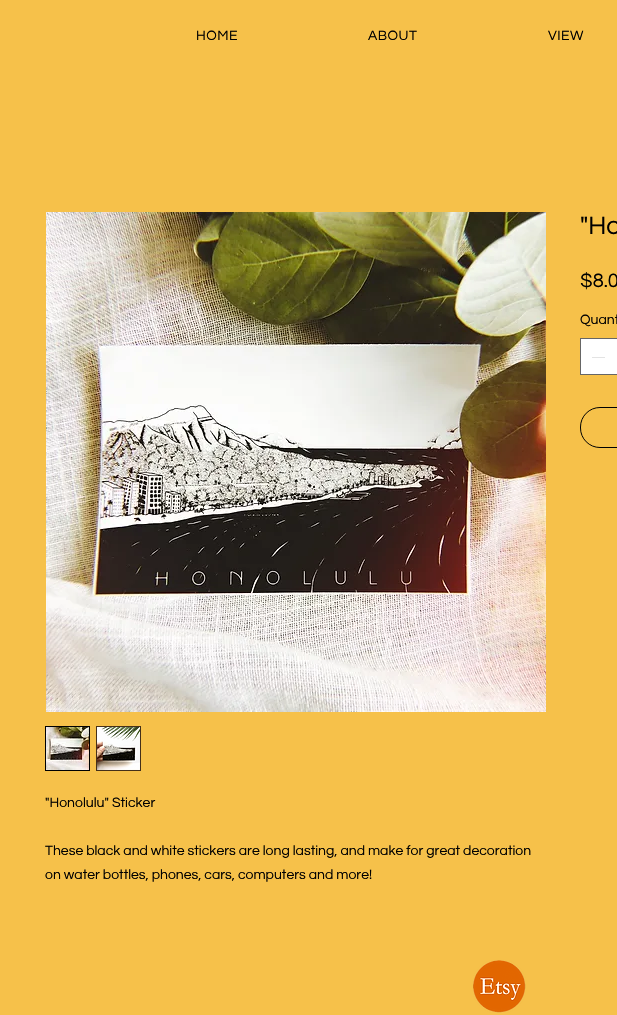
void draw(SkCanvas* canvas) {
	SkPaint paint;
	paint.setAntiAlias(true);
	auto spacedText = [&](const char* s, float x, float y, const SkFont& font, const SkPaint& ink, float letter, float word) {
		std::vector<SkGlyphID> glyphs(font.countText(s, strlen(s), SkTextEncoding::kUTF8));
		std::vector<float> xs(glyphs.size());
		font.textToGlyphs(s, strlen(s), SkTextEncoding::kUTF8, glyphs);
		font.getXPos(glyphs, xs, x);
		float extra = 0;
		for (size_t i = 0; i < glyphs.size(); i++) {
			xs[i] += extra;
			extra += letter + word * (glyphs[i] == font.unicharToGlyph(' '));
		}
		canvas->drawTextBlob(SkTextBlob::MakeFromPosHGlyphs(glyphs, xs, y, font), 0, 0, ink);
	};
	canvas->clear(0xfff6c14a);
	SkFont f1(fontMgr->matchFamilyStyle("Questrial", SkFontStyle::Normal()), 14);
	f1.setSubpixel(true);
	paint.setColor(0xff000000);
	spacedText("HOME", 196, 40, f1, paint, 0.5, 0);
	spacedText("ABOUT", 368, 40, f1, paint, 0.5, 0);
	spacedText("VIEW", 548, 40, f1, paint, 0.5, 0);
	SkFont f2(fontMgr->matchFamilyStyle("Questrial", SkFontStyle::Normal()), 26);
	f2.setSubpixel(true);
	canvas->drawString("\"Ho", 580, 234, f2, paint);
	SkFont f3(fontMgr->matchFamilyStyle("Questrial", SkFontStyle::Normal()), 20);
	f3.setSubpixel(true);
	canvas->drawString("$8.0", 580, 287, f3, paint);
	canvas->drawString("Quant", 580, 324, f1, paint);
	paint.setColor(0xffffffff);
	canvas->drawRect(SkRect::MakeXYWH(580.5, 338.5, 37, 36), paint);
	paint.setStroke(true);
	paint.setStrokeWidth(1);
	paint.setColor(0xff666666);
	canvas->drawRect(SkRect::MakeXYWH(580.5, 338.5, 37, 36), paint);
	paint.setStroke(false);
	paint.setColor(0xffe3e3e3);
	canvas->drawRect(SkRect::MakeXYWH(592, 357, 13, 1), paint);
	paint.setStroke(true);
	paint.setColor(0xff000000);
	canvas->drawRoundRect(SkRect::MakeXYWH(580.5, 407.5, 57, 40), 19.5, 19.5, paint);
	canvas->drawImageRect(SkImages::DeferredFromEncodedData(SkData::MakeFromFileName("img1.png")), SkRect::MakeXYWH(46, 212, 500, 500), SkSamplingOptions());
	canvas->drawRect(SkRect::MakeXYWH(45.5, 726.5, 44, 44), paint);
	canvas->drawImageRect(SkImages::DeferredFromEncodedData(SkData::MakeFromFileName("img2.png")), SkRect::MakeXYWH(46, 727, 43, 43), SkSamplingOptions());
	paint.setColor(0xff453019);
	canvas->drawRect(SkRect::MakeXYWH(96.5, 726.5, 44, 44), paint);
	canvas->drawImageRect(SkImages::DeferredFromEncodedData(SkData::MakeFromFileName("img3.png")), SkRect::MakeXYWH(97, 727, 43, 43), SkSamplingOptions());
	paint.setStroke(false);
	paint.setColor(0xff000000);
	canvas->drawString("\"Honolulu\" Sticker", 45, 807, f1, paint);
	canvas->drawString("These black and white stickers are long lasting, and make for great decoration", 45, 855, f1, paint);
	canvas->drawString("on water bottles, phones, cars, computers and more!", 45, 879, f1, paint);
	canvas->drawImageRect(SkImages::DeferredFromEncodedData(SkData::MakeFromFileName("img4.png")), SkRect::MakeXYWH(473, 960, 53, 53), SkSamplingOptions());
}
